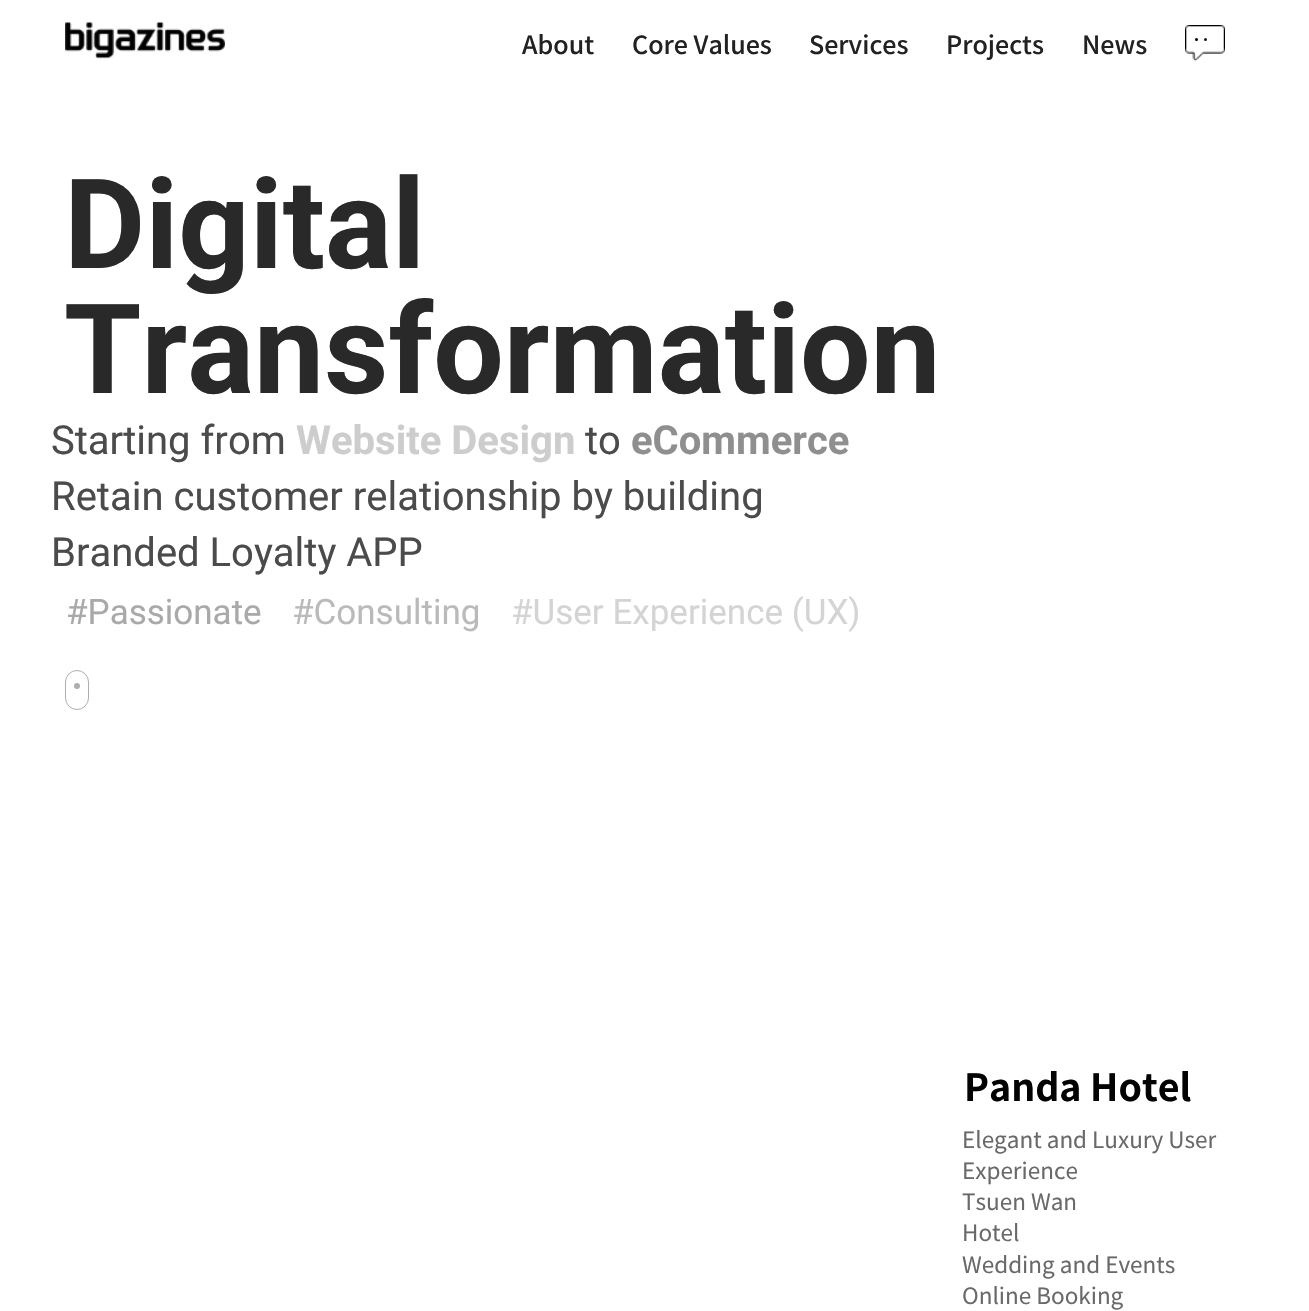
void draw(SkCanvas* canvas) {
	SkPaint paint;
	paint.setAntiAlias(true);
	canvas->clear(0xffffffff);
	canvas->drawImageRect(SkImages::DeferredFromEncodedData(SkData::MakeFromFileName("img1.png")), SkRect::MakeXYWH(65, 22, 160, 37), SkSamplingOptions());
	SkFont f1(fontMgr->matchFamilyStyle("Noto Sans TC", SkFontStyle(500, SkFontStyle::kNormal_Width, SkFontStyle::kUpright_Slant)), 25);
	f1.setSubpixel(true);
	paint.setColor(0xff222222);
	canvas->drawString("About", 522, 54, f1, paint);
	canvas->drawString("Core Values", 632, 54, f1, paint);
	canvas->drawString("Services", 809, 54, f1, paint);
	canvas->drawString("Projects", 946, 54, f1, paint);
	canvas->drawString("News", 1082, 54, f1, paint);
	canvas->drawImageRect(SkImages::DeferredFromEncodedData(SkData::MakeFromFileName("img2.png")), SkRect::MakeXYWH(1185, 25, 40, 37), SkSamplingOptions());
	paint.setColor(0xff000000);
	canvas->drawCircle(1196.5, 39.5, 1.5, paint);
	paint.setColor(0xff171717);
	canvas->drawCircle(1205.5, 39.5, 1.5, paint);
	SkFont f2(fontMgr->matchFamilyStyle("Roboto", SkFontStyle::Bold()), 125);
	f2.setSubpixel(true);
	paint.setColor(0xff292929);
	canvas->drawString("Digital", 64, 268, f2, paint);
	canvas->drawString("Transformation", 64, 393, f2, paint);
	SkFont f3(fontMgr->matchFamilyStyle("Roboto", SkFontStyle::Normal()), 40);
	f3.setSubpixel(true);
	paint.setColor(0xff4b4b4b);
	canvas->drawString("Starting from", 51, 454, f3, paint);
	SkFont f4(fontMgr->matchFamilyStyle("Roboto", SkFontStyle::Bold()), 40);
	f4.setSubpixel(true);
	paint.setColor(0xffcdcdcd);
	canvas->drawString("Website Design", 296, 454, f4, paint);
	paint.setColor(0xff4b4b4b);
	canvas->drawString("to", 585, 454, f3, paint);
	paint.setColor(0xff8f8f8f);
	canvas->drawString("eCommerce", 631, 454, f4, paint);
	paint.setColor(0xff4b4b4b);
	canvas->drawString("Retain customer relationship by building", 51, 510, f3, paint);
	canvas->drawString("Branded Loyalty APP", 51, 566, f3, paint);
	SkFont f5(fontMgr->matchFamilyStyle("Roboto", SkFontStyle::Normal()), 35);
	f5.setSubpixel(true);
	paint.setColor(0xffa9a9a9);
	canvas->drawString("#Passionate", 66, 624, f5, paint);
	paint.setColor(0xffbababa);
	canvas->drawString("#Consulting", 292, 624, f5, paint);
	paint.setColor(0xffd4d4d4);
	canvas->drawString("#User Experience (UX)", 511, 624, f5, paint);
	paint.setStroke(true);
	paint.setStrokeWidth(1);
	paint.setColor(0xffadadad);
	canvas->drawRoundRect(SkRect::MakeXYWH(65.5, 670.5, 23, 39), 11.5, 11.5, paint);
	paint.setStroke(false);
	canvas->drawCircle(77, 686, 3, paint);
	SkFont f6(fontMgr->matchFamilyStyle("Noto Sans TC", SkFontStyle::Bold()), 37.5);
	f6.setSubpixel(true);
	paint.setColor(0xff020202);
	canvas->drawString("Panda Hotel", 964, 1101, f6, paint);
	SkFont f7(fontMgr->matchFamilyStyle("Noto Sans TC", SkFontStyle::Normal()), 22.5);
	f7.setSubpixel(true);
	paint.setColor(0xff696969);
	canvas->drawString("Elegant and Luxury User", 962, 1148, f7, paint);
	canvas->drawString("Experience", 962, 1179, f7, paint);
	canvas->drawString("Tsuen Wan", 962, 1210, f7, paint);
	canvas->drawString("Hotel", 962, 1241, f7, paint);
	canvas->drawString("Wedding and Events", 962, 1273, f7, paint);
	canvas->drawString("Online Booking", 962, 1304, f7, paint);
}
